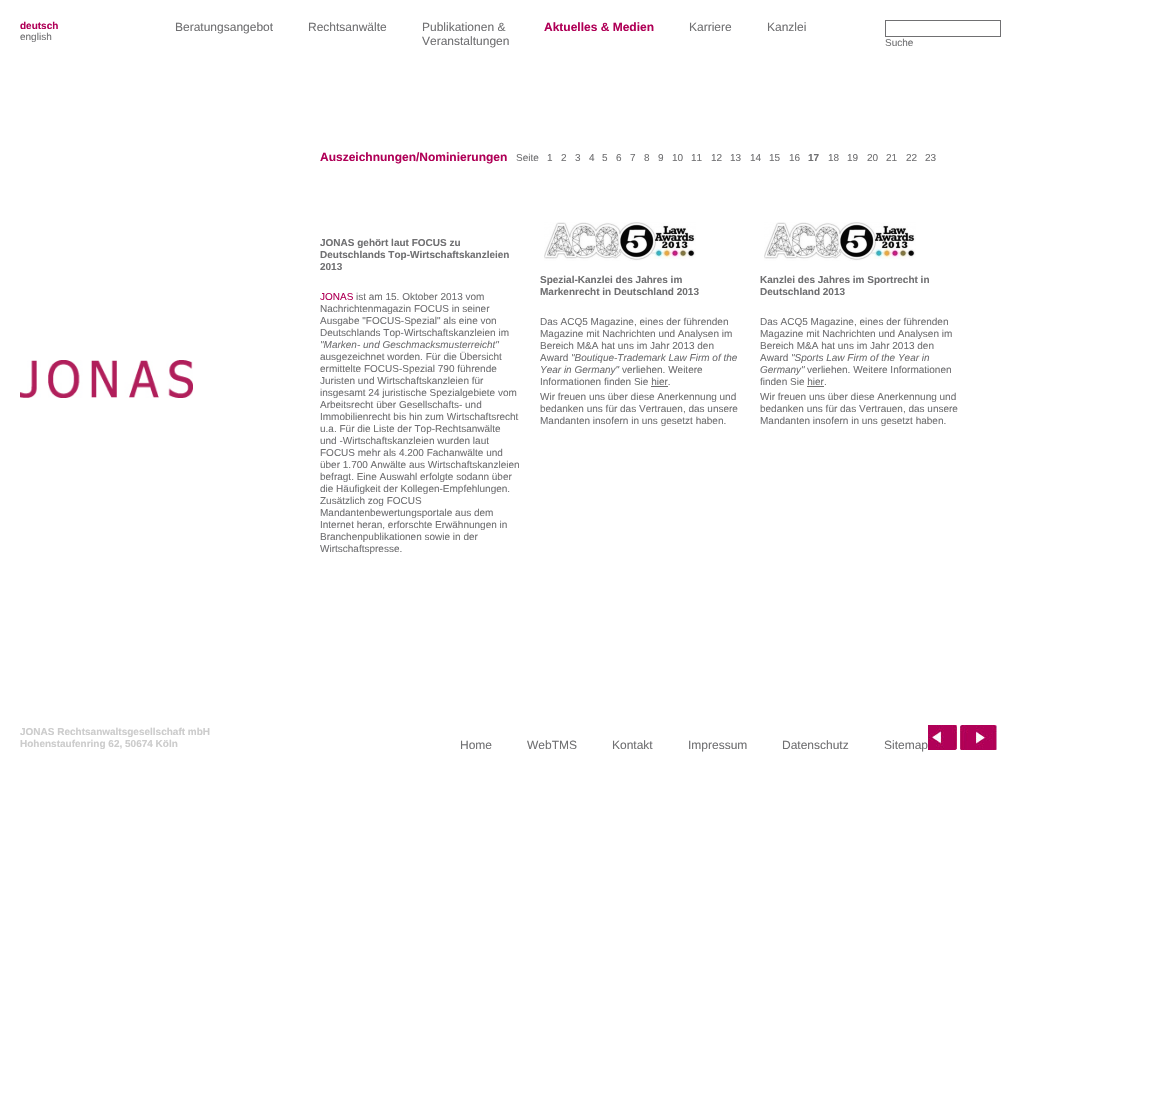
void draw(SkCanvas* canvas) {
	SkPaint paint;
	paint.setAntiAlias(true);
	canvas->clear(0xffffffff);
	SkFont f1(fontMgr->matchFamilyStyle("Liberation Sans", SkFontStyle::Bold()), 10);
	f1.setSubpixel(true);
	paint.setColor(0xffb00057);
	canvas->drawString("deutsch", 20, 29, f1, paint);
	SkFont f2(fontMgr->matchFamilyStyle("Liberation Sans", SkFontStyle::Normal()), 10);
	f2.setSubpixel(true);
	paint.setColor(0xff707072);
	canvas->drawString("english", 20, 40, f2, paint);
	SkFont f3(fontMgr->matchFamilyStyle("Liberation Sans", SkFontStyle::Normal()), 12);
	f3.setSubpixel(true);
	canvas->drawString("Beratungsangebot", 175, 31, f3, paint);
	canvas->drawString("Rechtsanwälte", 308, 31, f3, paint);
	canvas->drawString("Publikationen &", 422, 31, f3, paint);
	canvas->drawString("Veranstaltungen", 422, 45, f3, paint);
	SkFont f4(fontMgr->matchFamilyStyle("Liberation Sans", SkFontStyle::Bold()), 12);
	f4.setSubpixel(true);
	paint.setColor(0xffb00057);
	canvas->drawString("Aktuelles & Medien", 544, 31, f4, paint);
	paint.setColor(0xff707072);
	canvas->drawString("Karriere", 689, 31, f3, paint);
	canvas->drawString("Kanzlei", 767, 31, f3, paint);
	paint.setStroke(true);
	paint.setStrokeWidth(1);
	canvas->drawRect(SkRect::MakeXYWH(885.5, 20.5, 115, 16), paint);
	paint.setStroke(false);
	canvas->drawString("Suche", 885, 46, f2, paint);
	canvas->drawImageRect(SkImages::DeferredFromEncodedData(SkData::MakeFromFileName("img1.png")), SkRect::MakeXYWH(20, 360, 173, 38), SkSamplingOptions());
	paint.setColor(0xffb00057);
	canvas->drawString("Auszeichnungen/Nominierungen", 320, 161, f4, paint);
	paint.setColor(0xff707072);
	canvas->drawString("Seite", 516, 161, f2, paint);
	canvas->drawString("1", 547, 161, f2, paint);
	canvas->drawString("2", 561, 161, f2, paint);
	canvas->drawString("3", 575, 161, f2, paint);
	canvas->drawString("4", 589, 161, f2, paint);
	canvas->drawString("5", 602, 161, f2, paint);
	canvas->drawString("6", 616, 161, f2, paint);
	canvas->drawString("7", 630, 161, f2, paint);
	canvas->drawString("8", 644, 161, f2, paint);
	canvas->drawString("9", 658, 161, f2, paint);
	canvas->drawString("10", 672, 161, f2, paint);
	canvas->drawString("11", 691, 161, f2, paint);
	canvas->drawString("12", 711, 161, f2, paint);
	canvas->drawString("13", 730, 161, f2, paint);
	canvas->drawString("14", 750, 161, f2, paint);
	canvas->drawString("15", 769, 161, f2, paint);
	canvas->drawString("16", 789, 161, f2, paint);
	canvas->drawString("17", 808, 161, f1, paint);
	canvas->drawString("18", 828, 161, f2, paint);
	canvas->drawString("19", 847, 161, f2, paint);
	canvas->drawString("20", 867, 161, f2, paint);
	canvas->drawString("21", 886, 161, f2, paint);
	canvas->drawString("22", 906, 161, f2, paint);
	canvas->drawString("23", 925, 161, f2, paint);
	canvas->drawString("JONAS gehört laut FOCUS zu", 320, 246, f1, paint);
	canvas->drawString("Deutschlands Top-Wirtschaftskanzleien", 320, 258, f1, paint);
	canvas->drawString("2013", 320, 270, f1, paint);
	paint.setColor(0xffb00057);
	canvas->drawString("JONAS", 320, 300, f2, paint);
	paint.setColor(0xff707072);
	canvas->drawString("ist am 15. Oktober 2013 vom", 356, 300, f2, paint);
	canvas->drawString("Nachrichtenmagazin FOCUS in seiner", 320, 312, f2, paint);
	canvas->drawString("Ausgabe \"FOCUS-Spezial\" als eine von", 320, 324, f2, paint);
	canvas->drawString("Deutschlands Top-Wirtschaftskanzleien im", 320, 336, f2, paint);
	SkFont f5(fontMgr->matchFamilyStyle("Liberation Sans", SkFontStyle::Italic()), 10);
	f5.setSubpixel(true);
	canvas->drawString("\"Marken- und Geschmacksmusterreicht\"", 320, 348, f5, paint);
	canvas->drawString("ausgezeichnet worden. Für die Übersicht", 320, 360, f2, paint);
	canvas->drawString("ermittelte FOCUS-Spezial 790 führende", 320, 372, f2, paint);
	canvas->drawString("Juristen und Wirtschaftskanzleien für", 320, 384, f2, paint);
	canvas->drawString("insgesamt 24 juristische Spezialgebiete vom", 320, 396, f2, paint);
	canvas->drawString("Arbeitsrecht über Gesellschafts- und", 320, 408, f2, paint);
	canvas->drawString("Immobilienrecht bis hin zum Wirtschaftsrecht", 320, 420, f2, paint);
	canvas->drawString("u.a. Für die Liste der Top-Rechtsanwälte", 320, 432, f2, paint);
	canvas->drawString("und -Wirtschaftskanzleien wurden laut", 320, 444, f2, paint);
	canvas->drawString("FOCUS mehr als 4.200 Fachanwälte und", 320, 456, f2, paint);
	canvas->drawString("über 1.700 Anwälte aus Wirtschaftskanzleien", 320, 468, f2, paint);
	canvas->drawString("befragt. Eine Auswahl erfolgte sodann über", 320, 480, f2, paint);
	canvas->drawString("die Häufigkeit der Kollegen-Empfehlungen.", 320, 492, f2, paint);
	canvas->drawString("Zusätzlich zog FOCUS", 320, 504, f2, paint);
	canvas->drawString("Mandantenbewertungsportale aus dem", 320, 516, f2, paint);
	canvas->drawString("Internet heran, erforschte Erwähnungen in", 320, 528, f2, paint);
	canvas->drawString("Branchenpublikationen sowie in der", 320, 540, f2, paint);
	canvas->drawString("Wirtschaftspresse.", 320, 552, f2, paint);
	canvas->drawImageRect(SkImages::DeferredFromEncodedData(SkData::MakeFromFileName("img2.png")), SkRect::MakeXYWH(544, 222, 152, 39), SkSamplingOptions());
	canvas->drawString("Spezial-Kanzlei des Jahres im", 540, 283, f1, paint);
	canvas->drawString("Markenrecht in Deutschland 2013", 540, 295, f1, paint);
	canvas->drawString("Das ACQ5 Magazine, eines der führenden", 540, 325, f2, paint);
	canvas->drawString("Magazine mit Nachrichten und Analysen im", 540, 337, f2, paint);
	canvas->drawString("Bereich M&A hat uns im Jahr 2013 den", 540, 349, f2, paint);
	canvas->drawString("Award", 540, 361, f2, paint);
	canvas->drawString("\"Boutique-Trademark Law Firm of the", 571, 361, f5, paint);
	canvas->drawString("Year in Germany\"", 540, 373, f5, paint);
	canvas->drawString("verliehen. Weitere", 622, 373, f2, paint);
	canvas->drawString("Informationen finden Sie hier.", 540, 385, f2, paint);
	canvas->drawRect(SkRect::MakeXYWH(651, 386, 17, 1), paint);
	canvas->drawString("Wir freuen uns über diese Anerkennung und", 540, 400, f2, paint);
	canvas->drawString("bedanken uns für das Vertrauen, das unsere", 540, 412, f2, paint);
	canvas->drawString("Mandanten insofern in uns gesetzt haben.", 540, 424, f2, paint);
	canvas->drawImageRect(SkImages::DeferredFromEncodedData(SkData::MakeFromFileName("img2.png")), SkRect::MakeXYWH(764, 222, 152, 39), SkSamplingOptions());
	canvas->drawString("Kanzlei des Jahres im Sportrecht in", 760, 283, f1, paint);
	canvas->drawString("Deutschland 2013", 760, 295, f1, paint);
	canvas->drawString("Das ACQ5 Magazine, eines der führenden", 760, 325, f2, paint);
	canvas->drawString("Magazine mit Nachrichten und Analysen im", 760, 337, f2, paint);
	canvas->drawString("Bereich M&A hat uns im Jahr 2013 den", 760, 349, f2, paint);
	canvas->drawString("Award", 760, 361, f2, paint);
	canvas->drawString("\"Sports Law Firm of the Year in", 791, 361, f5, paint);
	canvas->drawString("Germany\"", 760, 373, f5, paint);
	canvas->drawString("verliehen. Weitere Informationen", 807, 373, f2, paint);
	canvas->drawString("finden Sie hier.", 760, 385, f2, paint);
	canvas->drawRect(SkRect::MakeXYWH(807, 386, 17, 1), paint);
	canvas->drawString("Wir freuen uns über diese Anerkennung und", 760, 400, f2, paint);
	canvas->drawString("bedanken uns für das Vertrauen, das unsere", 760, 412, f2, paint);
	canvas->drawString("Mandanten insofern in uns gesetzt haben.", 760, 424, f2, paint);
	paint.setColor(0xffcccccc);
	canvas->drawString("JONAS Rechtsanwaltsgesellschaft mbH", 20, 735, f1, paint);
	canvas->drawString("Hohenstaufenring 62, 50674 Köln", 20, 747, f1, paint);
	paint.setColor(0xff707072);
	canvas->drawString("Home", 460, 749, f3, paint);
	canvas->drawString("WebTMS", 527, 749, f3, paint);
	canvas->drawString("Kontakt", 612, 749, f3, paint);
	canvas->drawString("Impressum", 688, 749, f3, paint);
	canvas->drawString("Datenschutz", 782, 749, f3, paint);
	canvas->drawString("Sitemap", 884, 749, f3, paint);
	canvas->drawImageRect(SkImages::DeferredFromEncodedData(SkData::MakeFromFileName("img3.png")), SkRect::MakeXYWH(928, 725, 29, 25), SkSamplingOptions());
	canvas->drawImageRect(SkImages::DeferredFromEncodedData(SkData::MakeFromFileName("img4.png")), SkRect::MakeXYWH(960, 725, 37, 25), SkSamplingOptions());
}
